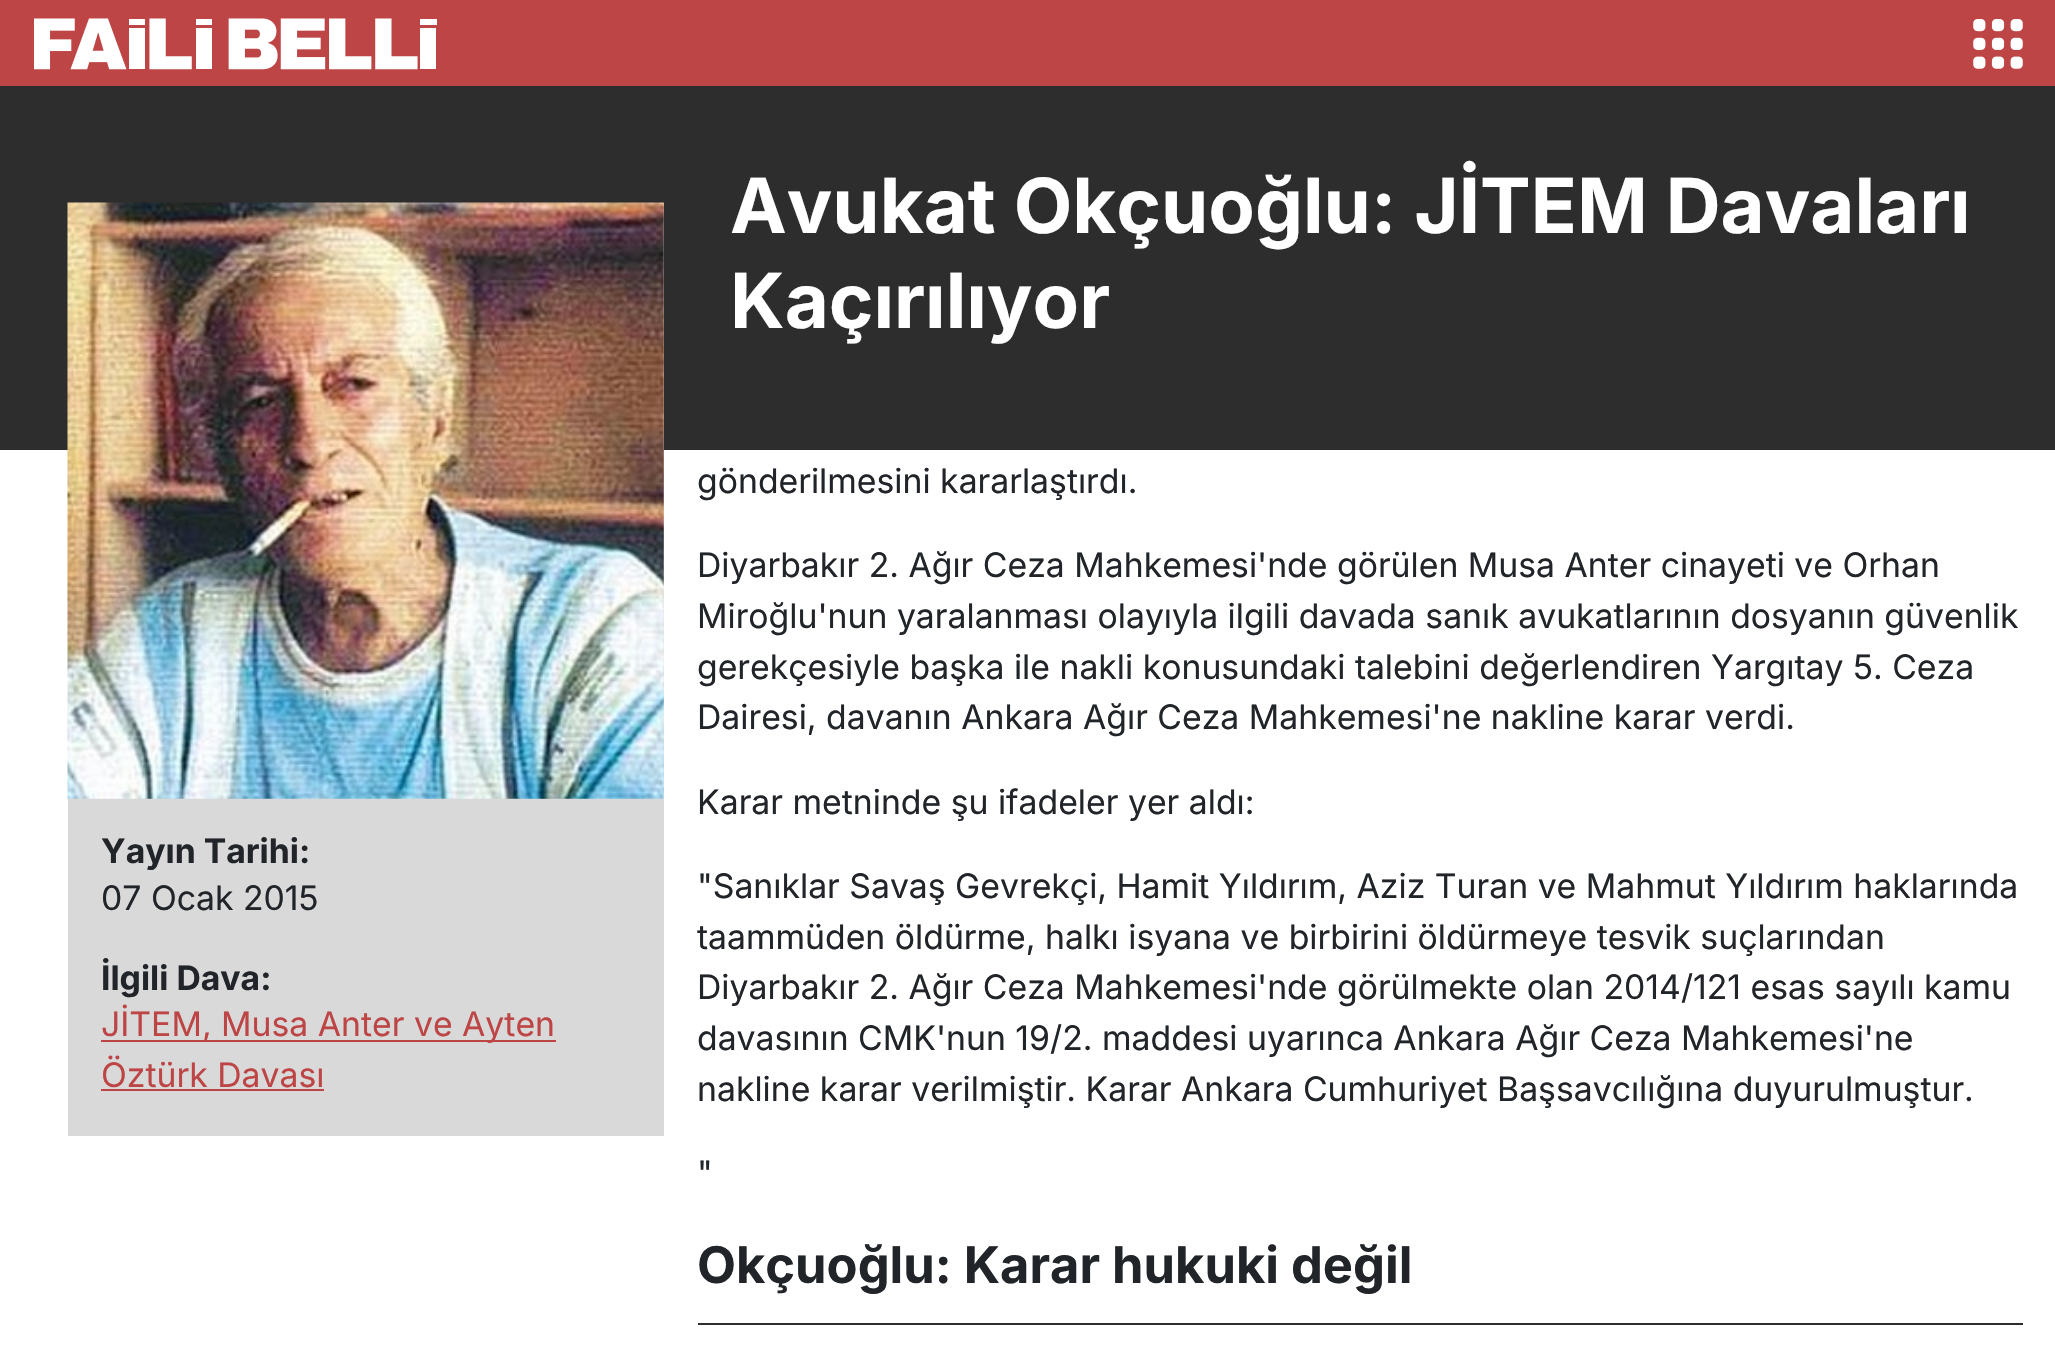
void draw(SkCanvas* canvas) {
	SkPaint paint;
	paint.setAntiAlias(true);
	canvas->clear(0xffffffff);
	paint.setColor(0xffbd4545);
	canvas->drawRect(SkRect::MakeXYWH(0, 0, 2055, 86), paint);
	canvas->drawImageRect(SkImages::DeferredFromEncodedData(SkData::MakeFromFileName("img1.png")), SkRect::MakeXYWH(34, 18, 403, 52), SkSamplingOptions());
	canvas->drawImageRect(SkImages::DeferredFromEncodedData(SkData::MakeFromFileName("img2.png")), SkRect::MakeXYWH(1973, 19, 50, 50), SkSamplingOptions());
	paint.setColor(0xff2d2d2d);
	canvas->drawRect(SkRect::MakeXYWH(0, 86, 2055, 364), paint);
	paint.setColor(0xffd9d9d9);
	canvas->drawRect(SkRect::MakeXYWH(68, 203, 596, 933), paint);
	canvas->drawImageRect(SkImages::DeferredFromEncodedData(SkData::MakeFromFileName("img3.png")), SkRect::MakeXYWH(67, 202, 597, 597), SkSamplingOptions());
	SkFont f1(fontMgr->matchFamilyStyle("Inter", SkFontStyle::Bold()), 33.75);
	f1.setSubpixel(true);
	paint.setColor(0xff212529);
	canvas->drawString("Yayın Tarihi:", 101, 863, f1, paint);
	SkFont f2(fontMgr->matchFamilyStyle("Inter", SkFontStyle::Normal()), 33.75);
	f2.setSubpixel(true);
	canvas->drawString("07 Ocak 2015", 101, 910, f2, paint);
	canvas->drawString("İlgili Dava:", 101, 990, f1, paint);
	paint.setColor(0xffbd4545);
	canvas->drawRect(SkRect::MakeXYWH(101, 1040, 455, 2), paint);
	canvas->drawString("JİTEM, Musa Anter ve Ayten", 101, 1036, f2, paint);
	canvas->drawString("Öztürk Davası", 101, 1087, f2, paint);
	canvas->drawRect(SkRect::MakeXYWH(101, 1089, 223, 2), paint);
	SkFont f3(fontMgr->matchFamilyStyle("Inter", SkFontStyle::Bold()), 76);
	f3.setSubpixel(true);
	paint.setColor(0xffffffff);
	canvas->drawString("Avukat Okçuoğlu: JİTEM Davaları", 730, 233, f3, paint);
	canvas->drawString("Kaçırılıyor", 730, 328, f3, paint);
	paint.setColor(0xff212529);
	canvas->drawString("gönderilmesini kararlaştırdı.", 697, 493, f2, paint);
	canvas->drawString("Diyarbakır 2. Ağır Ceza Mahkemesi'nde görülen Musa Anter cinayeti ve Orhan", 697, 577, f2, paint);
	canvas->drawString("Miroğlu'nun yaralanması olayıyla ilgili davada sanık avukatlarının dosyanın güvenlik", 697, 628, f2, paint);
	canvas->drawString("gerekçesiyle başka ile nakli konusundaki talebini değerlendiren Yargıtay 5. Ceza", 697, 679, f2, paint);
	canvas->drawString("Dairesi, davanın Ankara Ağır Ceza Mahkemesi'ne nakline karar verdi.", 697, 729, f2, paint);
	canvas->drawString("Karar metninde şu ifadeler yer aldı:", 697, 814, f2, paint);
	canvas->drawString("\"Sanıklar Savaş Gevrekçi, Hamit Yıldırım, Aziz Turan ve Mahmut Yıldırım haklarında", 697, 898, f2, paint);
	canvas->drawString("taammüden öldürme, halkı isyana ve birbirini öldürmeye tesvik suçlarından", 697, 949, f2, paint);
	canvas->drawString("Diyarbakır 2. Ağır Ceza Mahkemesi'nde görülmekte olan 2014/121 esas sayılı kamu", 697, 999, f2, paint);
	canvas->drawString("davasının CMK'nun 19/2. maddesi uyarınca Ankara Ağır Ceza Mahkemesi'ne", 697, 1050, f2, paint);
	canvas->drawString("nakline karar verilmiştir. Karar Ankara Cumhuriyet Başsavcılığına duyurulmuştur.", 697, 1101, f2, paint);
	canvas->drawString("\"", 697, 1185, f2, paint);
	paint.setColor(0xff2d2d2d);
	canvas->drawRect(SkRect::MakeXYWH(698, 1323, 1325, 2), paint);
	SkFont f4(fontMgr->matchFamilyStyle("Inter", SkFontStyle::Bold()), 50.6);
	f4.setSubpixel(true);
	paint.setColor(0xff212529);
	canvas->drawString("Okçuoğlu: Karar hukuki değil", 697, 1283, f4, paint);
}
